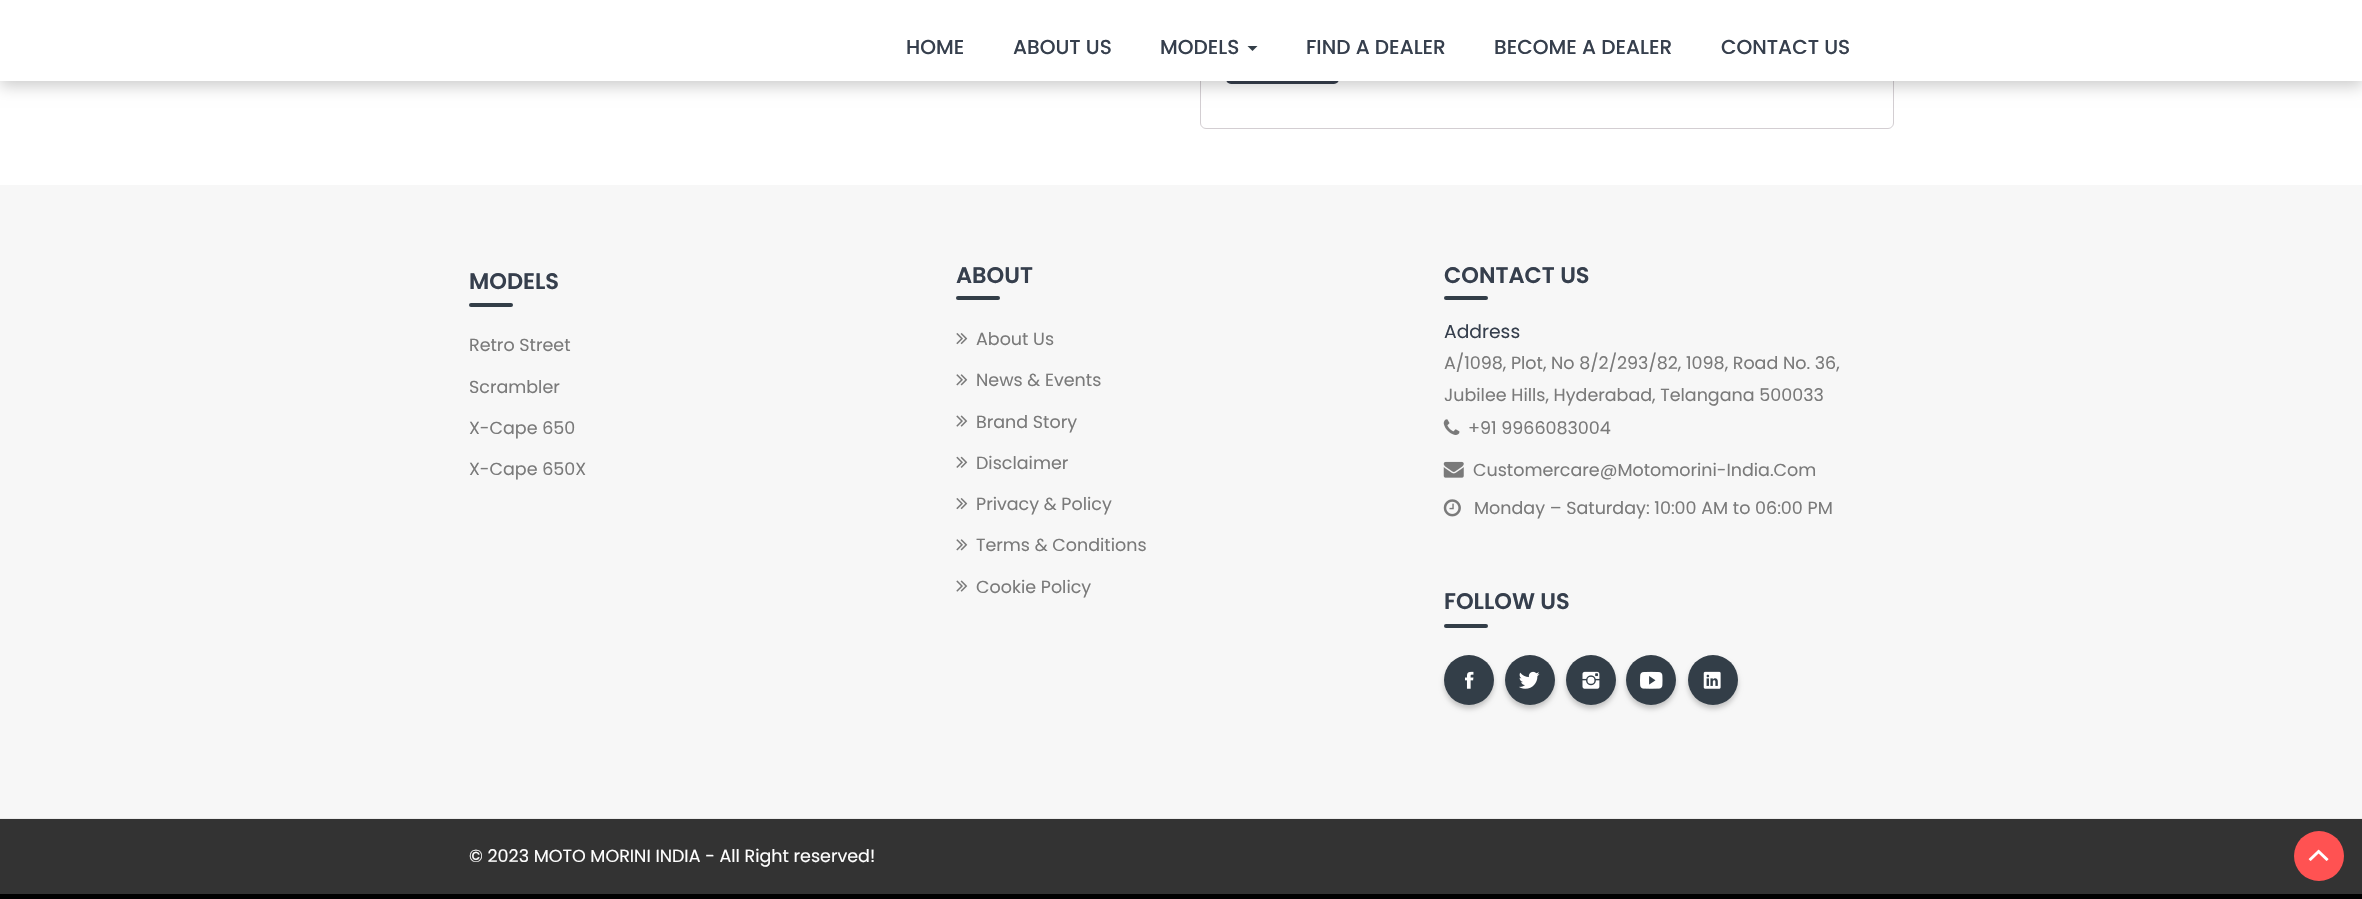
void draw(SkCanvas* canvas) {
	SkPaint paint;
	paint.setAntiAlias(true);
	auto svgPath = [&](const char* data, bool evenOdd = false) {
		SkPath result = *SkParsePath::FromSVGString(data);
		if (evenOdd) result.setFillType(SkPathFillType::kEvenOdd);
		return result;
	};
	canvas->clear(0xffffffff);
	paint.setStroke(true);
	paint.setStrokeWidth(1);
	paint.setColor(0xffd3ced2);
	canvas->drawRoundRect(SkRect::MakeXYWH(1200.5, -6.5, 693, 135), 5.5, 5.5, paint);
	paint.setStroke(false);
	paint.setColor(0xff363f4d);
	canvas->drawRoundRect(SkRect::MakeXYWH(1226, 36, 113, 48), 5, 5, paint);
	paint.setColor(0x33000000);
	paint.setMaskFilter(SkMaskFilter::MakeBlur(kNormal_SkBlurStyle, 7.5));
	canvas->drawRect(SkRect::MakeXYWH(0, 5, 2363, 81), paint);
	paint.setMaskFilter(nullptr);
	paint.setColor(0xffffffff);
	canvas->drawRect(SkRect::MakeXYWH(0, 0, 2362, 81), paint);
	SkFont f1(fontMgr->matchFamilyStyle("Poppins", SkFontStyle(500, SkFontStyle::kNormal_Width, SkFontStyle::kUpright_Slant)), 20.1);
	f1.setSubpixel(true);
	paint.setColor(0xff363f4d);
	canvas->drawString("HOME", 906, 54, f1, paint);
	canvas->drawString("ABOUT US", 1013, 54, f1, paint);
	canvas->drawString("MODELS", 1160, 54, f1, paint);
	paint.setColor(0xff333e48);
	canvas->drawPath(svgPath("M1247.5 46H1257.5L1252.5 51Z"), paint);
	paint.setColor(0xff363f4d);
	canvas->drawString("FIND A DEALER", 1306, 54, f1, paint);
	canvas->drawString("BECOME A DEALER", 1494, 54, f1, paint);
	canvas->drawString("CONTACT US", 1721, 54, f1, paint);
	paint.setColor(0xfff7f7f7);
	canvas->drawRect(SkRect::MakeXYWH(0, 185, 2362, 633), paint);
	SkFont f2(fontMgr->matchFamilyStyle("Poppins", SkFontStyle(600, SkFontStyle::kNormal_Width, SkFontStyle::kUpright_Slant)), 22.5);
	f2.setSubpixel(true);
	paint.setColor(0xff363f4d);
	canvas->drawString("MODELS", 469, 289, f2, paint);
	paint.setColor(0xff333e48);
	canvas->drawRoundRect(SkRect::MakeXYWH(469, 303, 44, 4), 2, 2, paint);
	SkFont f3(fontMgr->matchFamilyStyle("Poppins", SkFontStyle::Normal()), 17.5);
	f3.setSubpixel(true);
	paint.setColor(0xff7a7a7a);
	canvas->drawString("Retro Street", 469, 351, f3, paint);
	canvas->drawString("Scrambler", 469, 393, f3, paint);
	canvas->drawString("X-Cape 650", 469, 434, f3, paint);
	canvas->drawString("X-Cape 650X", 469, 475, f3, paint);
	paint.setColor(0xff363f4d);
	canvas->drawString("ABOUT", 956, 283, f2, paint);
	paint.setColor(0xff333e48);
	canvas->drawRoundRect(SkRect::MakeXYWH(956, 296, 44, 4), 2, 2, paint);
	canvas->drawImageRect(SkImages::DeferredFromEncodedData(SkData::MakeFromFileName("img1.png")), SkRect::MakeXYWH(956, 333, 12, 12), SkSamplingOptions());
	paint.setColor(0xff7a7a7a);
	canvas->drawString("About Us", 976, 345, f3, paint);
	canvas->drawImageRect(SkImages::DeferredFromEncodedData(SkData::MakeFromFileName("img2.png")), SkRect::MakeXYWH(956, 374, 12, 12), SkSamplingOptions());
	canvas->drawString("News & Events", 976, 386, f3, paint);
	canvas->drawImageRect(SkImages::DeferredFromEncodedData(SkData::MakeFromFileName("img3.png")), SkRect::MakeXYWH(956, 415, 12, 12), SkSamplingOptions());
	canvas->drawString("Brand Story", 976, 428, f3, paint);
	canvas->drawImageRect(SkImages::DeferredFromEncodedData(SkData::MakeFromFileName("img4.png")), SkRect::MakeXYWH(956, 456, 12, 12), SkSamplingOptions());
	canvas->drawString("Disclaimer", 976, 469, f3, paint);
	canvas->drawImageRect(SkImages::DeferredFromEncodedData(SkData::MakeFromFileName("img1.png")), SkRect::MakeXYWH(956, 498, 12, 12), SkSamplingOptions());
	canvas->drawString("Privacy & Policy", 976, 510, f3, paint);
	canvas->drawImageRect(SkImages::DeferredFromEncodedData(SkData::MakeFromFileName("img2.png")), SkRect::MakeXYWH(956, 539, 12, 12), SkSamplingOptions());
	canvas->drawString("Terms & Conditions", 976, 551, f3, paint);
	canvas->drawImageRect(SkImages::DeferredFromEncodedData(SkData::MakeFromFileName("img3.png")), SkRect::MakeXYWH(956, 580, 12, 12), SkSamplingOptions());
	canvas->drawString("Cookie Policy", 976, 593, f3, paint);
	paint.setColor(0xff363f4d);
	canvas->drawString("CONTACT US", 1444, 283, f2, paint);
	paint.setColor(0xff333e48);
	canvas->drawRoundRect(SkRect::MakeXYWH(1444, 296, 44, 4), 2, 2, paint);
	SkFont f4(fontMgr->matchFamilyStyle("Poppins", SkFontStyle::Normal()), 18.75);
	f4.setSubpixel(true);
	paint.setColor(0xff363f4d);
	canvas->drawString("Address", 1444, 338, f4, paint);
	paint.setColor(0xff7a7a7a);
	canvas->drawString("A/1098, Plot, No 8/2/293/82, 1098, Road No. 36,", 1444, 369, f3, paint);
	canvas->drawString("Jubilee Hills, Hyderabad, Telangana 500033", 1444, 401, f3, paint);
	canvas->drawImageRect(SkImages::DeferredFromEncodedData(SkData::MakeFromFileName("img5.png")), SkRect::MakeXYWH(1443, 419, 17, 16), SkSamplingOptions());
	canvas->drawString("+91 9966083004", 1468, 434, f3, paint);
	canvas->drawImageRect(SkImages::DeferredFromEncodedData(SkData::MakeFromFileName("img6.png")), SkRect::MakeXYWH(1443, 461, 21, 17), SkSamplingOptions());
	canvas->drawString("Customercare@Motomorini-India.Com", 1473, 476, f3, paint);
	canvas->drawImageRect(SkImages::DeferredFromEncodedData(SkData::MakeFromFileName("img7.png")), SkRect::MakeXYWH(1443, 499, 18, 18), SkSamplingOptions());
	canvas->drawString("Monday – Saturday: 10:00 AM to 06:00 PM", 1474, 514, f3, paint);
	paint.setColor(0xff363f4d);
	canvas->drawString("FOLLOW US", 1444, 609, f2, paint);
	paint.setColor(0xff333e48);
	canvas->drawRoundRect(SkRect::MakeXYWH(1444, 624, 44, 4), 2, 2, paint);
	paint.setColor(0x33000000);
	paint.setMaskFilter(SkMaskFilter::MakeBlur(kNormal_SkBlurStyle, 2.5));
	canvas->drawRoundRect(SkRect::MakeXYWH(1444, 659, 50, 50), 25, 25, paint);
	paint.setMaskFilter(nullptr);
	paint.setColor(0xff333e48);
	canvas->drawCircle(1469, 680, 25, paint);
	canvas->drawImageRect(SkImages::DeferredFromEncodedData(SkData::MakeFromFileName("img8.png")), SkRect::MakeXYWH(1465, 671, 9, 18), SkSamplingOptions());
	paint.setColor(0x33000000);
	paint.setMaskFilter(SkMaskFilter::MakeBlur(kNormal_SkBlurStyle, 2.5));
	canvas->drawRoundRect(SkRect::MakeXYWH(1505, 659, 50, 50), 25, 25, paint);
	paint.setMaskFilter(nullptr);
	paint.setColor(0xff333e48);
	canvas->drawCircle(1530, 680, 25, paint);
	canvas->drawImageRect(SkImages::DeferredFromEncodedData(SkData::MakeFromFileName("img9.png")), SkRect::MakeXYWH(1519, 671, 21, 18), SkSamplingOptions());
	paint.setColor(0x33000000);
	paint.setMaskFilter(SkMaskFilter::MakeBlur(kNormal_SkBlurStyle, 2.5));
	canvas->drawRoundRect(SkRect::MakeXYWH(1566, 659, 50, 50), 25, 25, paint);
	paint.setMaskFilter(nullptr);
	paint.setColor(0xff333e48);
	canvas->drawCircle(1591, 680, 25, paint);
	canvas->drawImageRect(SkImages::DeferredFromEncodedData(SkData::MakeFromFileName("img10.png")), SkRect::MakeXYWH(1582, 671, 18, 18), SkSamplingOptions());
	paint.setColor(0x33000000);
	paint.setMaskFilter(SkMaskFilter::MakeBlur(kNormal_SkBlurStyle, 2.5));
	canvas->drawRoundRect(SkRect::MakeXYWH(1626, 659, 50, 50), 25, 25, paint);
	paint.setMaskFilter(nullptr);
	paint.setColor(0xff333e48);
	canvas->drawCircle(1651, 680, 25, paint);
	canvas->drawImageRect(SkImages::DeferredFromEncodedData(SkData::MakeFromFileName("img11.png")), SkRect::MakeXYWH(1640, 671, 23, 18), SkSamplingOptions());
	paint.setColor(0x33000000);
	paint.setMaskFilter(SkMaskFilter::MakeBlur(kNormal_SkBlurStyle, 2.5));
	canvas->drawRoundRect(SkRect::MakeXYWH(1688, 659, 50, 50), 25, 25, paint);
	paint.setMaskFilter(nullptr);
	paint.setColor(0xff333e48);
	canvas->drawCircle(1713, 680, 25, paint);
	canvas->drawImageRect(SkImages::DeferredFromEncodedData(SkData::MakeFromFileName("img12.png")), SkRect::MakeXYWH(1703, 671, 18, 18), SkSamplingOptions());
	paint.setColor(0xff333333);
	canvas->drawRect(SkRect::MakeXYWH(0, 819, 2362, 75), paint);
	paint.setColor(0xffebebeb);
	canvas->drawRect(SkRect::MakeXYWH(0, 818, 2362, 1), paint);
	paint.setColor(0xff000000);
	canvas->drawRect(SkRect::MakeXYWH(0, 894, 2362, 5), paint);
	paint.setColor(0xffffffff);
	canvas->drawString("© 2023 MOTO MORINI INDIA - All Right reserved!", 469, 862, f3, paint);
	paint.setColor(0xffff5252);
	canvas->drawCircle(2319, 856, 25, paint);
	canvas->drawImageRect(SkImages::DeferredFromEncodedData(SkData::MakeFromFileName("img13.png")), SkRect::MakeXYWH(2308, 849, 21, 12), SkSamplingOptions());
}
